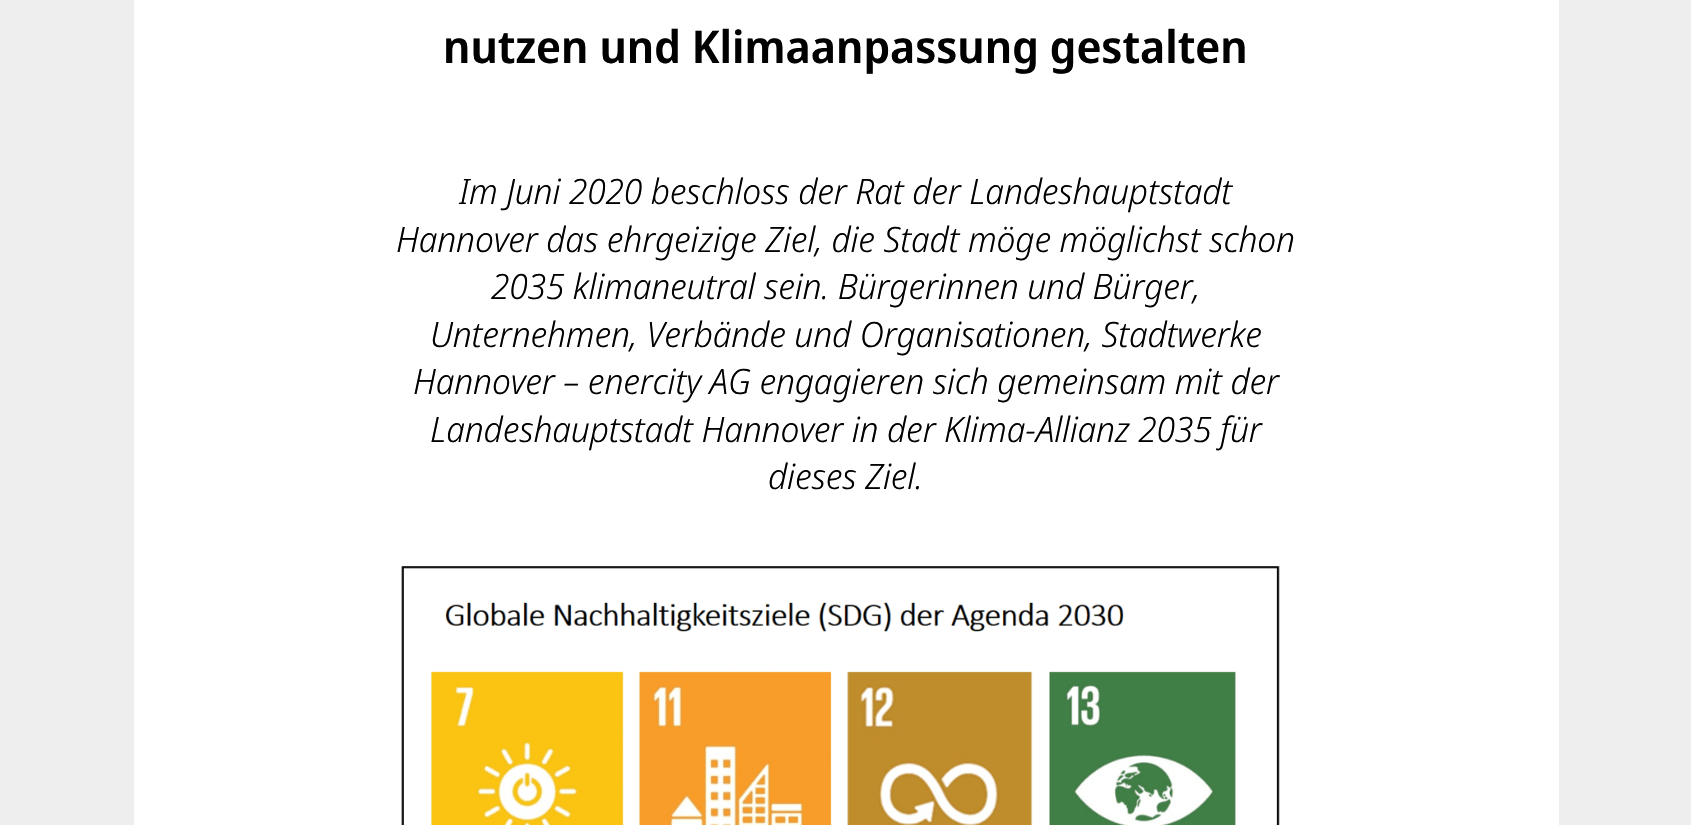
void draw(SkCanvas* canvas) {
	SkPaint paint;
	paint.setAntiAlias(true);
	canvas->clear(0xffeeeeee);
	paint.setColor(0xffffffff);
	canvas->drawRect(SkRect::MakeXYWH(134, 0, 1425, 825), paint);
	SkFont f1(fontMgr->matchFamilyStyle("Noto Sans Display", SkFontStyle(600, SkFontStyle::kNormal_Width, SkFontStyle::kUpright_Slant)), 45);
	f1.setSubpixel(true);
	paint.setColor(0xff000000);
	canvas->drawString("nutzen und Klimaanpassung gestalten", 443, 63, f1, paint);
	SkFont f2(fontMgr->matchFamilyStyle("Noto Sans Display", SkFontStyle(300, SkFontStyle::kNormal_Width, SkFontStyle::kItalic_Slant)), 35);
	f2.setSubpixel(true);
	canvas->drawString("Im Juni 2020 beschloss der Rat der Landeshauptstadt", 459, 204, f2, paint);
	canvas->drawString("Hannover das ehrgeizige Ziel, die Stadt möge möglichst schon", 396, 252, f2, paint);
	canvas->drawString("2035 klimaneutral sein. Bürgerinnen und Bürger,", 491, 299, f2, paint);
	canvas->drawString("Unternehmen, Verbände und Organisationen, Stadtwerke", 430, 347, f2, paint);
	canvas->drawString("Hannover – enercity AG engagieren sich gemeinsam mit der", 413, 394, f2, paint);
	canvas->drawString("Landeshauptstadt Hannover in der Klima-Allianz 2035 für", 430, 442, f2, paint);
	canvas->drawString("dieses Ziel.", 768, 489, f2, paint);
	canvas->drawImageRect(SkImages::DeferredFromEncodedData(SkData::MakeFromFileName("img1.png")), SkRect::MakeXYWH(401, 566, 879, 259), SkSamplingOptions());
}
